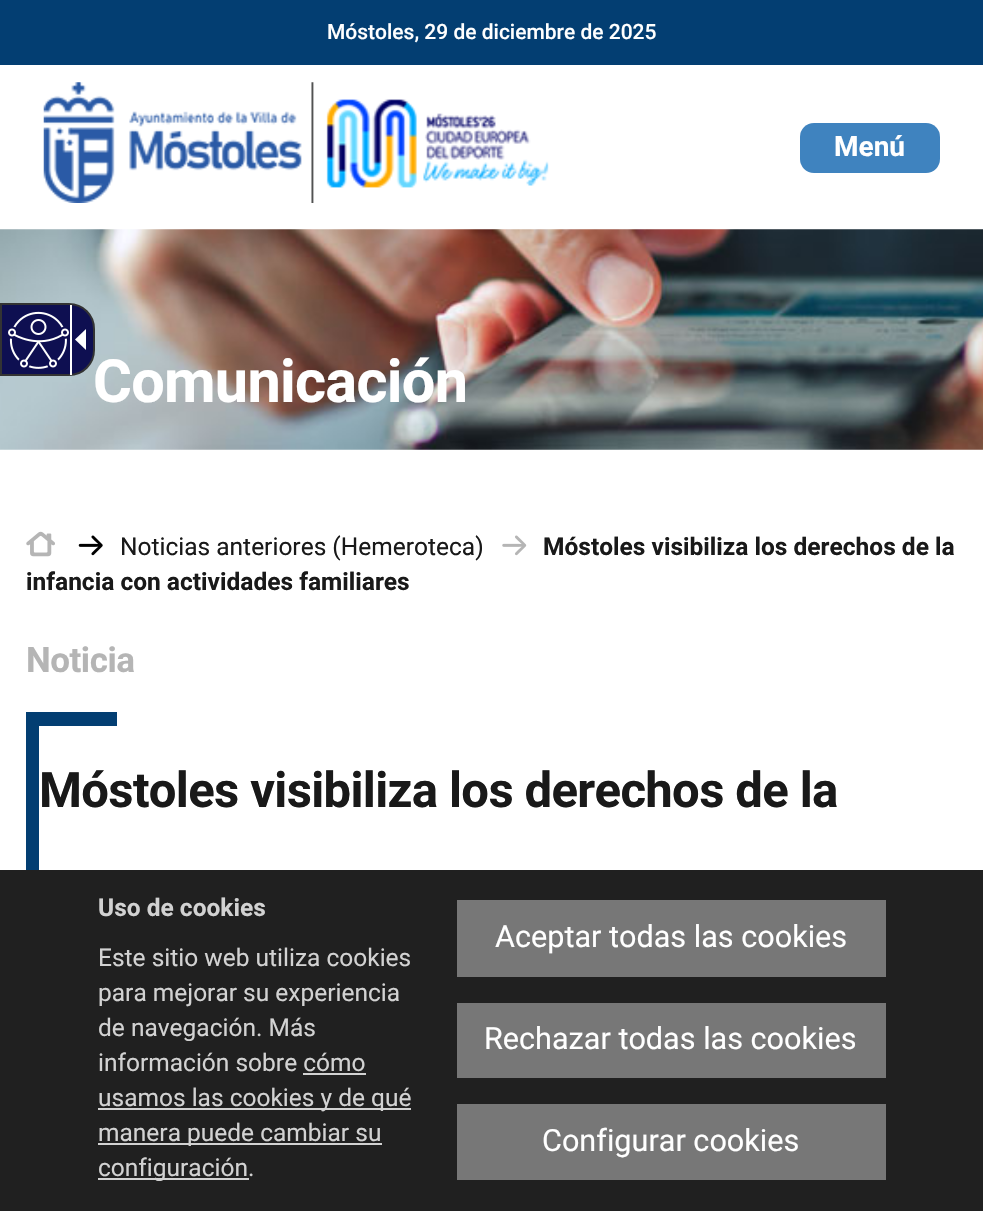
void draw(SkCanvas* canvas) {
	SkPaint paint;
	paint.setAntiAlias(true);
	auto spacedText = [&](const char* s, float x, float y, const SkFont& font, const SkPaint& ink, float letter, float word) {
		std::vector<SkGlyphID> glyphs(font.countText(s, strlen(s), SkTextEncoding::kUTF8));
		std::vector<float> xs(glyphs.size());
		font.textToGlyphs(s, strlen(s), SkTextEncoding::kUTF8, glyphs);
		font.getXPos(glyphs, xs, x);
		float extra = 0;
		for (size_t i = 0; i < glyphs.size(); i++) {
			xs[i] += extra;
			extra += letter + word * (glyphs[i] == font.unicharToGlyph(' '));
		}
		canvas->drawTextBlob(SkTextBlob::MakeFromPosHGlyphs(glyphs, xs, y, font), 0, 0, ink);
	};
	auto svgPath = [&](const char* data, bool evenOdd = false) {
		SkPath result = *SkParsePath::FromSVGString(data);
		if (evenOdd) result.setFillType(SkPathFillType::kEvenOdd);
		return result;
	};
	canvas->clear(0xffffffff);
	paint.setColor(0xff033e72);
	canvas->drawRect(SkRect::MakeXYWH(0, 0, 983, 65), paint);
	SkFont f1(fontMgr->matchFamilyStyle("Roboto", SkFontStyle(500, SkFontStyle::kNormal_Width, SkFontStyle::kUpright_Slant)), 21);
	f1.setSubpixel(true);
	paint.setColor(0xffffffff);
	canvas->drawString("Móstoles, 29 de diciembre de 2025", 327, 39, f1, paint);
	canvas->drawImageRect(SkImages::DeferredFromEncodedData(SkData::MakeFromFileName("img1.png")), SkRect::MakeXYWH(43, 82, 506, 121), SkSamplingOptions());
	paint.setColor(0xff3f83bf);
	canvas->drawRoundRect(SkRect::MakeXYWH(800, 123, 140, 50), 14, 14, paint);
	SkFont f2(fontMgr->matchFamilyStyle("Roboto", SkFontStyle::Bold()), 28);
	f2.setSubpixel(true);
	paint.setColor(0xffffffff);
	canvas->drawString("Menú", 834, 156, f2, paint);
	canvas->drawImageRect(SkImages::DeferredFromEncodedData(SkData::MakeFromFileName("img2.png")), SkRect::MakeXYWH(0, 229, 983, 221), SkSamplingOptions());
	SkFont f3(fontMgr->matchFamilyStyle("Roboto", SkFontStyle::Bold()), 59.5);
	f3.setSubpixel(true);
	spacedText("Comunicación", 93, 402, f3, paint, -0.75, 0);
	canvas->drawImageRect(SkImages::DeferredFromEncodedData(SkData::MakeFromFileName("img3.png")), SkRect::MakeXYWH(26, 531, 29, 26), SkSamplingOptions());
	canvas->drawImageRect(SkImages::DeferredFromEncodedData(SkData::MakeFromFileName("img4.png")), SkRect::MakeXYWH(78, 535, 25, 21), SkSamplingOptions());
	SkFont f4(fontMgr->matchFamilyStyle("Roboto", SkFontStyle::Normal()), 24.5);
	f4.setSubpixel(true);
	paint.setColor(0xff191919);
	canvas->drawString("Noticias anteriores (Hemeroteca)", 120, 555, f4, paint);
	canvas->drawImageRect(SkImages::DeferredFromEncodedData(SkData::MakeFromFileName("img5.png")), SkRect::MakeXYWH(502, 535, 25, 21), SkSamplingOptions());
	SkFont f5(fontMgr->matchFamilyStyle("Roboto", SkFontStyle::Bold()), 24.5);
	f5.setSubpixel(true);
	canvas->drawString("Móstoles visibiliza los derechos de la", 543, 555, f5, paint);
	canvas->drawString("infancia con actividades familiares", 26, 590, f5, paint);
	SkFont f6(fontMgr->matchFamilyStyle("Roboto", SkFontStyle::Bold()), 35);
	f6.setSubpixel(true);
	paint.setColor(0xffb5b5b5);
	spacedText("Noticia", 26, 672, f6, paint, -0.5, 0);
	paint.setColor(0xff033e72);
	canvas->drawRect(SkRect::MakeXYWH(26, 712, 13, 158), paint);
	canvas->drawRect(SkRect::MakeXYWH(39, 712, 78, 14), paint);
	SkFont f7(fontMgr->matchFamilyStyle("Roboto", SkFontStyle::Bold()), 49);
	f7.setSubpixel(true);
	paint.setColor(0xff191919);
	spacedText("Móstoles visibiliza los derechos de la", 39, 807, f7, paint, -0.65, 0);
	paint.setColor(0xff0e0f51);
	canvas->drawPath(svgPath("M1 304H69C83 304 94 315 94 329V350C94 364 83 375 69 375H1Z"), paint);
	paint.setStroke(true);
	paint.setStrokeWidth(2);
	paint.setColor(0xff333333);
	canvas->drawPath(svgPath("M1 304H69C83 304 94 315 94 329V350C94 364 83 375 69 375H1Z"), paint);
	paint.setStroke(false);
	paint.setColor(0xffffffff);
	canvas->drawRect(SkRect::MakeXYWH(70, 305, 2, 70), paint);
	canvas->drawImageRect(SkImages::DeferredFromEncodedData(SkData::MakeFromFileName("img6.png")), SkRect::MakeXYWH(8, 311, 61, 58), SkSamplingOptions());
	canvas->drawPath(svgPath("M86 329V350L75 339.5Z"), paint);
	paint.setColor(0xff202020);
	canvas->drawRect(SkRect::MakeXYWH(0, 870, 983, 341), paint);
	paint.setColor(0xffd2d2d2);
	canvas->drawString("Uso de cookies", 98, 916, f5, paint);
	canvas->drawString("Este sitio web utiliza cookies", 98, 966, f4, paint);
	canvas->drawString("para mejorar su experiencia", 98, 1001, f4, paint);
	canvas->drawString("de navegación. Más", 98, 1036, f4, paint);
	canvas->drawString("información sobre cómo", 98, 1071, f4, paint);
	canvas->drawRect(SkRect::MakeXYWH(98, 1108, 313, 2), paint);
	canvas->drawString("usamos las cookies y de qué", 98, 1106, f4, paint);
	canvas->drawRect(SkRect::MakeXYWH(303, 1073, 63, 2), paint);
	canvas->drawRect(SkRect::MakeXYWH(98, 1143, 284, 2), paint);
	canvas->drawString("manera puede cambiar su", 98, 1141, f4, paint);
	canvas->drawRect(SkRect::MakeXYWH(98, 1178, 151, 2), paint);
	canvas->drawString("configuración", 98, 1176, f4, paint);
	canvas->drawString(".", 248, 1176, f4, paint);
	paint.setColor(0xff777777);
	canvas->drawRect(SkRect::MakeXYWH(457, 900, 429, 77), paint);
	SkFont f8(fontMgr->matchFamilyStyle("Roboto", SkFontStyle::Normal()), 30.6);
	f8.setSubpixel(true);
	paint.setColor(0xffffffff);
	canvas->drawString("Aceptar todas las cookies", 495, 947, f8, paint);
	paint.setColor(0xff777777);
	canvas->drawRect(SkRect::MakeXYWH(457, 1003, 429, 75), paint);
	paint.setColor(0xffffffff);
	canvas->drawString("Rechazar todas las cookies", 484, 1049, f8, paint);
	paint.setColor(0xff777777);
	canvas->drawRect(SkRect::MakeXYWH(457, 1104, 429, 76), paint);
	paint.setColor(0xffffffff);
	canvas->drawString("Configurar cookies", 542, 1151, f8, paint);
}
